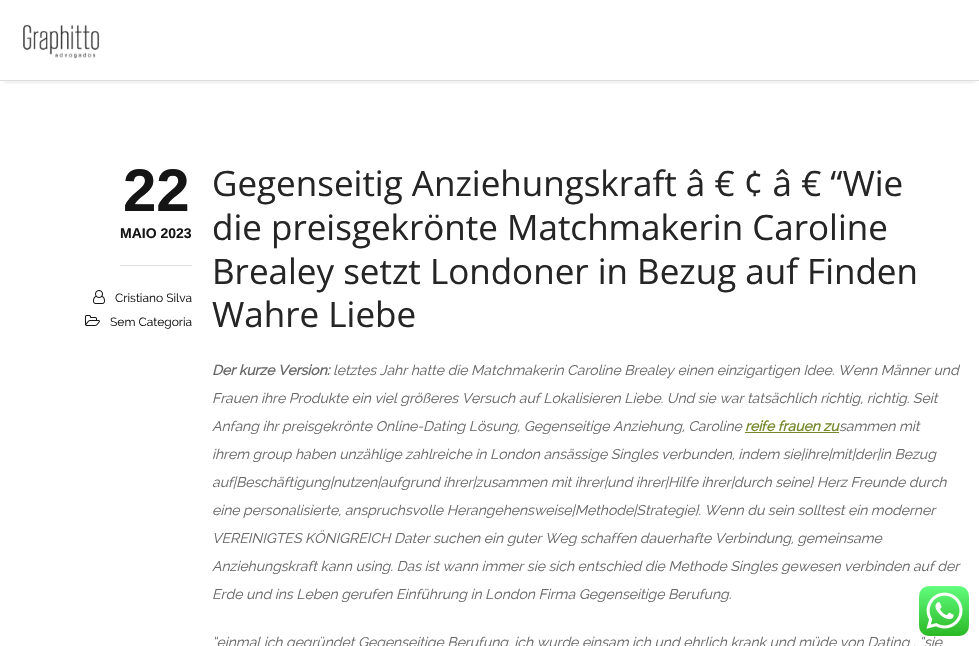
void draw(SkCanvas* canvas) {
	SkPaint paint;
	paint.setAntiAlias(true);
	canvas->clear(0xffffffff);
	canvas->save();
	canvas->clipRect(SkRect::MakeXYWH(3, 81, 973, 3));
	paint.setColor(0x1a000000);
	paint.setMaskFilter(SkMaskFilter::MakeBlur(kNormal_SkBlurStyle, 2.5));
	canvas->drawRect(SkRect::MakeXYWH(4, 9, 971, 73), paint);
	paint.setMaskFilter(nullptr);
	canvas->restore();
	paint.setColor(0xffdddddd);
	canvas->drawRect(SkRect::MakeXYWH(0, 80, 979, 1), paint);
	canvas->drawImageRect(SkImages::DeferredFromEncodedData(SkData::MakeFromFileName("img1.png")), SkRect::MakeXYWH(23, 24, 77, 35), SkSamplingOptions());
	canvas->drawRect(SkRect::MakeXYWH(120, 265, 72, 1), paint);
	SkFont f1(fontMgr->matchFamilyStyle("Liberation Sans", SkFontStyle::Bold()), 60);
	f1.setSubpixel(true);
	paint.setColor(0xff151515);
	canvas->drawString("22", 123, 211, f1, paint);
	SkFont f2(fontMgr->matchFamilyStyle("Liberation Sans", SkFontStyle::Bold()), 14);
	f2.setSubpixel(true);
	canvas->drawString("MAIO 2023", 120, 238, f2, paint);
	canvas->drawImageRect(SkImages::DeferredFromEncodedData(SkData::MakeFromFileName("img2.png")), SkRect::MakeXYWH(93, 290, 12, 14), SkSamplingOptions());
	SkFont f3(fontMgr->matchFamilyStyle("Raleway", SkFontStyle::Normal()), 12);
	f3.setSubpixel(true);
	canvas->drawString("Cristiano Silva", 115, 302, f3, paint);
	canvas->drawImageRect(SkImages::DeferredFromEncodedData(SkData::MakeFromFileName("img3.png")), SkRect::MakeXYWH(85, 315, 15, 11), SkSamplingOptions());
	canvas->drawString("Sem Categoria", 110, 326, f3, paint);
	SkFont f4(fontMgr->matchFamilyStyle("Open Sans", SkFontStyle::Normal()), 35);
	f4.setSubpixel(true);
	paint.setColor(0xff252525);
	canvas->drawString("Gegenseitig Anziehungskraft â € ¢ â € “Wie", 212, 196, f4, paint);
	canvas->drawString("die preisgekrönte Matchmakerin Caroline", 212, 240, f4, paint);
	canvas->drawString("Brealey setzt Londoner in Bezug auf Finden", 212, 284, f4, paint);
	canvas->drawString("Wahre Liebe", 212, 327, f4, paint);
	SkFont f5(fontMgr->matchFamilyStyle("Raleway", SkFontStyle::BoldItalic()), 14);
	f5.setSubpixel(true);
	paint.setColor(0xff686868);
	canvas->drawString("Der kurze Version:", 212, 375, f5, paint);
	SkFont f6(fontMgr->matchFamilyStyle("Raleway", SkFontStyle::Italic()), 14);
	f6.setSubpixel(true);
	canvas->drawString("letztes Jahr hatte die Matchmakerin Caroline Brealey einen einzigartigen Idee. Wenn Männer und", 333, 375, f6, paint);
	canvas->drawString("Frauen ihre Produkte ein viel größeres Versuch auf Lokalisieren Liebe. Und sie war tatsächlich richtig, richtig. Seit", 212, 403, f6, paint);
	canvas->drawString("Anfang ihr preisgekrönte Online-Dating Lösung, Gegenseitige Anziehung, Caroline", 212, 431, f6, paint);
	paint.setColor(0xff768a2c);
	canvas->drawRect(SkRect::MakeXYWH(745, 432, 94, 1), paint);
	canvas->drawString("reife frauen zu", 745, 431, f5, paint);
	paint.setColor(0xff686868);
	canvas->drawString("sammen mit", 839, 431, f6, paint);
	canvas->drawString("ihrem group haben unzählige zahlreiche in London ansässige Singles verbunden, indem sie|ihre|mit|der|in Bezug", 212, 459, f6, paint);
	canvas->drawString("auf|Beschäftigung|nutzen|aufgrund ihrer|zusammen mit ihrer|und ihrer|Hilfe ihrer|durch seine} Herz Freunde durch", 212, 487, f6, paint);
	canvas->drawString("eine personalisierte, anspruchsvolle Herangehensweise|Methode|Strategie}. Wenn du sein solltest ein moderner", 212, 515, f6, paint);
	canvas->drawString("VEREINIGTES KÖNIGREICH Dater suchen ein guter Weg schaffen dauerhafte Verbindung, gemeinsame", 212, 543, f6, paint);
	canvas->drawString("Anziehungskraft kann using. Das ist wann immer sie sich entschied die Methode Singles gewesen verbinden auf der", 212, 571, f6, paint);
	canvas->drawString("Erde und ins Leben gerufen Einführung in London Firma Gegenseitige Berufung.", 212, 599, f6, paint);
	canvas->drawString("“einmal ich gegründet Gegenseitige Berufung, ich wurde einsam ich und ehrlich krank und müde von Dating , “sie", 212, 647, f6, paint);
	canvas->drawImageRect(SkImages::DeferredFromEncodedData(SkData::MakeFromFileName("img4.png")), SkRect::MakeXYWH(919, 586, 50, 50), SkSamplingOptions());
}
